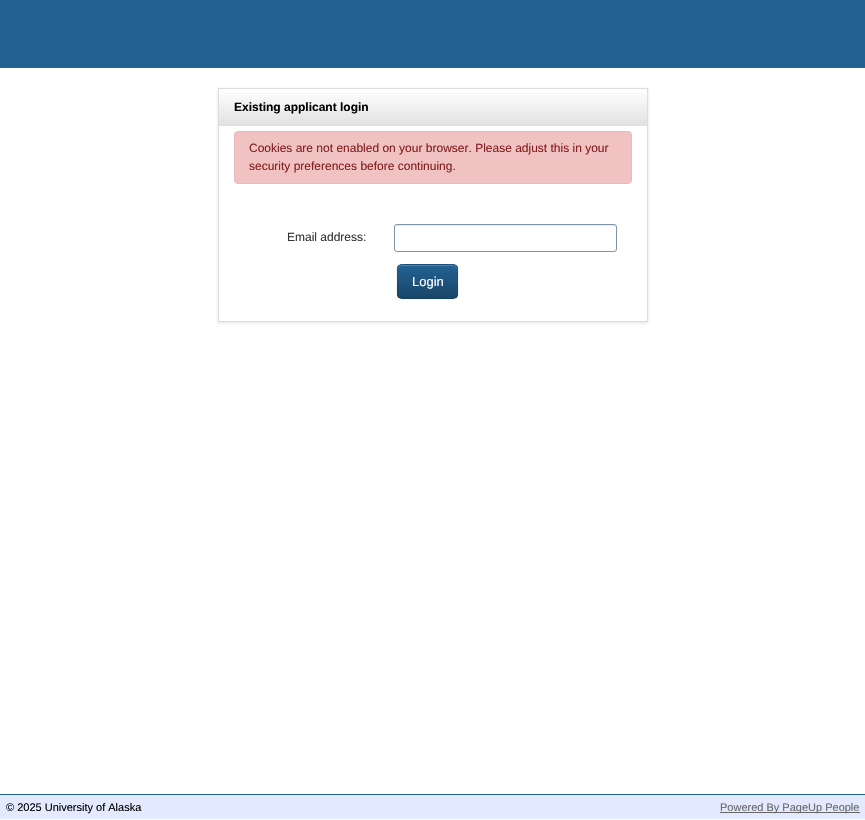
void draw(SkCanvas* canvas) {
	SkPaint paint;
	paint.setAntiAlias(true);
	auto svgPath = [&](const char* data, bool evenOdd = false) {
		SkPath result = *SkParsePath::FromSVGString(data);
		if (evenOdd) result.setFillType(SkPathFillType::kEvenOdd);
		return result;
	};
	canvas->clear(0xffffffff);
	paint.setColor(0xff236192);
	canvas->drawRect(SkRect::MakeXYWH(0, 0, 865, 68), paint);
	canvas->save();
	canvas->clipPath(svgPath("M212 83H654V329H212ZM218 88H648V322H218Z", true), true);
	paint.setColor(0x1c000000);
	paint.setMaskFilter(SkMaskFilter::MakeBlur(kNormal_SkBlurStyle, 1.5));
	canvas->drawRect(SkRect::MakeXYWH(218, 89, 430, 234), paint);
	paint.setMaskFilter(nullptr);
	canvas->restore();
	paint.setStroke(true);
	paint.setStrokeWidth(1);
	paint.setColor(0xffdddddd);
	canvas->drawRect(SkRect::MakeXYWH(218.5, 88.5, 429, 233), paint);
	paint.setStroke(false);
	{
		const SkColor colors[] = {0xffffffff, 0xffe1e1e1};
		const float stops[] = {0, 1};
		const SkPoint ends[] = {{433, 89}, {433, 126}};
		paint.setShader(SkGradientShader::MakeLinear(ends, colors, stops, 2, SkTileMode::kClamp));
		paint.setAlpha(255);
	}
	canvas->drawRect(SkRect::MakeXYWH(219, 92, 428, 34), paint);
	SkFont f1(fontMgr->matchFamilyStyle("Liberation Sans", SkFontStyle::Bold()), 12);
	f1.setSubpixel(true);
	paint.setShader(nullptr);
	paint.setColor(0xff000000);
	canvas->drawString("Existing applicant login", 234, 111, f1, paint);
	paint.setColor(0xfff1c2c2);
	canvas->drawRoundRect(SkRect::MakeXYWH(234.5, 131.5, 397, 52), 3.5, 3.5, paint);
	paint.setStroke(true);
	paint.setColor(0xffeeb6bf);
	canvas->drawRoundRect(SkRect::MakeXYWH(234.5, 131.5, 397, 52), 3.5, 3.5, paint);
	SkFont f2(fontMgr->matchFamilyStyle("Liberation Sans", SkFontStyle::Normal()), 12);
	f2.setSubpixel(true);
	paint.setStroke(false);
	paint.setColor(0xff821e1e);
	canvas->drawString("Cookies are not enabled on your browser. Please adjust this in your", 249, 152, f2, paint);
	canvas->drawString("security preferences before continuing.", 249, 170, f2, paint);
	paint.setColor(0xff333333);
	canvas->drawString("Email address:", 287, 241, f2, paint);
	paint.setColor(0xffececec);
	canvas->drawPath(svgPath("M397 226H614C615 226 616 227 616 228C616 227 616 225 614 225H397L396 226L395 228C395 227 396 226 397 226Z"), paint);
	paint.setStroke(true);
	paint.setColor(0xff7d94ab);
	canvas->drawRoundRect(SkRect::MakeXYWH(394.5, 224.5, 222, 27), 2.5, 2.5, paint);
	paint.setStroke(false);
	paint.setColor(0x0d000000);
	paint.setMaskFilter(SkMaskFilter::MakeBlur(kNormal_SkBlurStyle, 1));
	canvas->drawRoundRect(SkRect::MakeXYWH(397, 265, 61, 35), 5, 5, paint);
	paint.setMaskFilter(nullptr);
	paint.setColor(0xff1f5682);
	canvas->drawRoundRect(SkRect::MakeXYWH(397, 264, 61, 35), 5, 5, paint);
	canvas->save();
	canvas->clipPath(svgPath("M402 264H453C456 264 458 266 458 269V294C458 297 456 299 453 299H402C399 299 397 297 397 294V269C397 266 399 264 402 264Z"), true);
	{
		const SkColor colors[] = {0xff236192, 0xff194669};
		const float stops[] = {0, 1};
		const SkPoint ends[] = {{428, 265}, {428, 298}};
		paint.setShader(SkGradientShader::MakeLinear(ends, colors, stops, 2, SkTileMode::kClamp));
		paint.setAlpha(255);
	}
	canvas->drawRect(SkRect::MakeXYWH(397, 265, 61, 33), paint);
	canvas->restore();
	paint.setShader(nullptr);
	paint.setColor(0xff4f81a7);
	canvas->drawPath(svgPath("M402 266H453C455 266 457 268 457 270C457 263 450 265 444 265H410C405 265 398 263 398 270C398 268 400 266 402 266Z"), paint);
	paint.setStroke(true);
	paint.setColor(0x40000000);
	canvas->drawPath(svgPath("M456 297C455.5 298 454 298.5 453 298.5H402C401 298.5 399.5 298 399 297"), paint);
	paint.setColor(0x1a000000);
	canvas->drawPath(svgPath("M399 297C396 294.5 397.5 285 397.5 281.5C397.5 265 394.5 264.5 410.5 264.5H444.5C460.5 264.5 457.5 265 457.5 281.5C457.5 285 459 294.5 456 297"), paint);
	SkFont f3(fontMgr->matchFamilyStyle("Liberation Sans", SkFontStyle::Normal()), 13);
	f3.setSubpixel(true);
	paint.setStroke(false);
	paint.setColor(0xffffffff);
	canvas->drawString("Login", 412, 286, f3, paint);
	paint.setColor(0xffe3e9ff);
	canvas->drawRect(SkRect::MakeXYWH(0, 795, 865, 24), paint);
	paint.setColor(0xff236192);
	canvas->drawRect(SkRect::MakeXYWH(0, 794, 865, 1), paint);
	SkFont f4(fontMgr->matchFamilyStyle("Liberation Sans", SkFontStyle::Normal()), 11);
	f4.setSubpixel(true);
	paint.setColor(0xff000000);
	canvas->drawString("© 2025 University of Alaska", 6, 811, f4, paint);
	paint.setColor(0xff666666);
	canvas->drawRect(SkRect::MakeXYWH(720, 812, 140, 1), paint);
	canvas->drawString("Powered By PageUp People", 720, 811, f4, paint);
}
